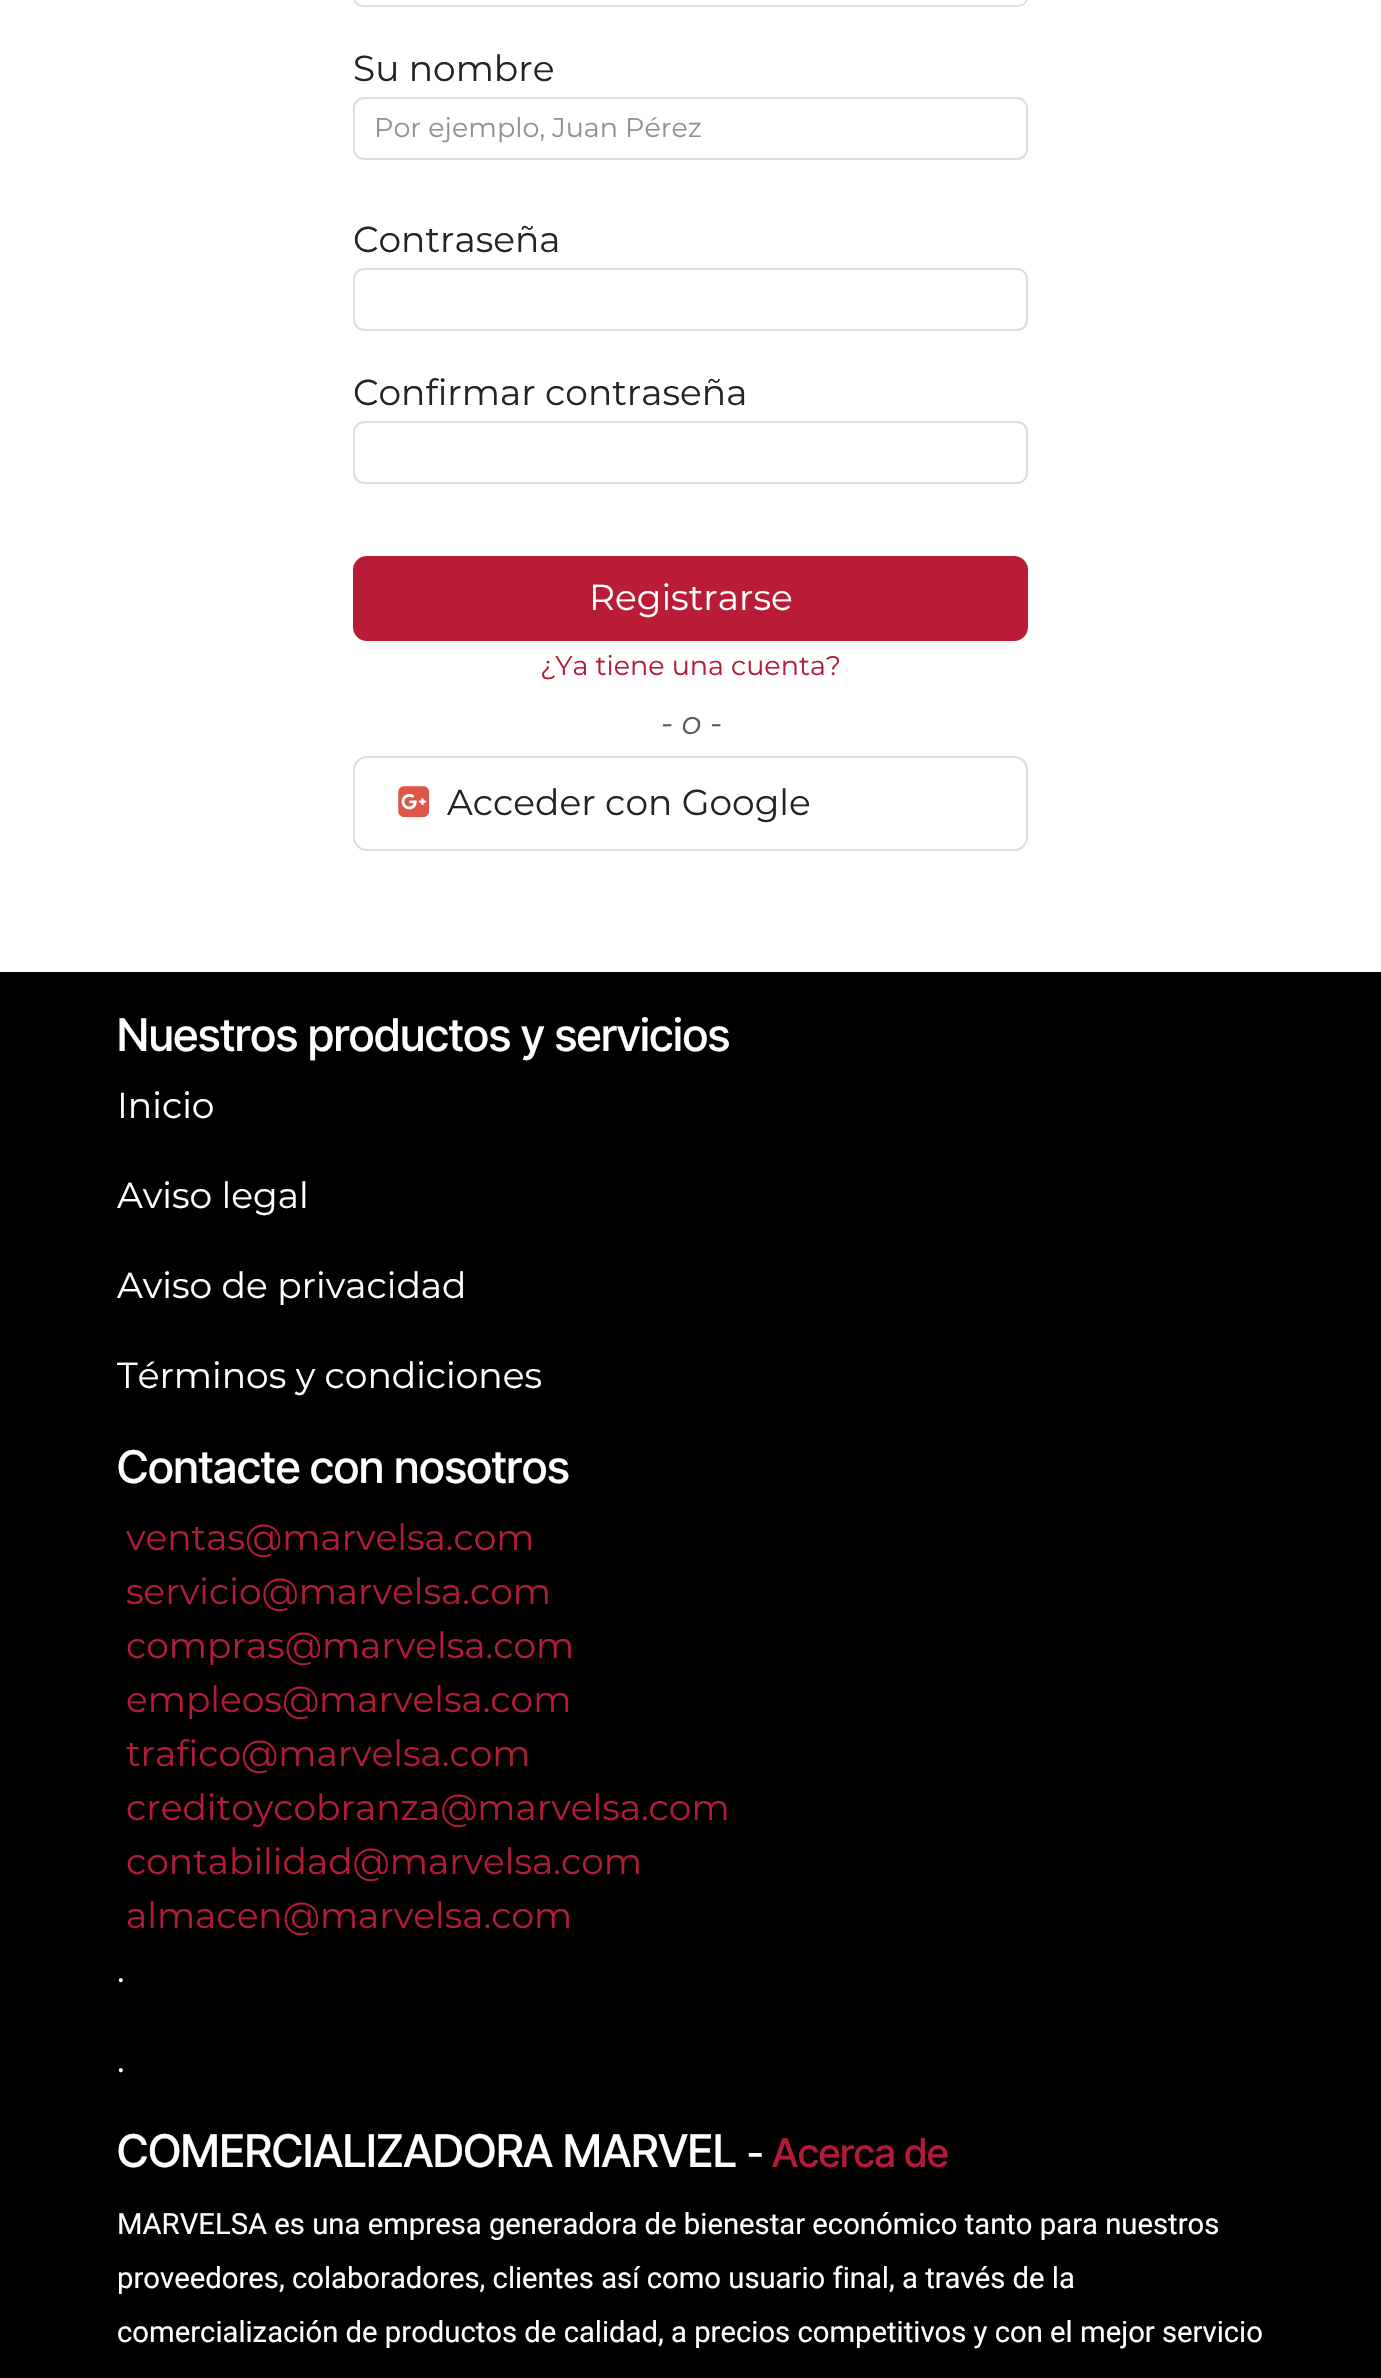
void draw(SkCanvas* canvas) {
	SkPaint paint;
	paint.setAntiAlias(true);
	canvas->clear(0xffffffff);
	paint.setStroke(true);
	paint.setStrokeWidth(2);
	paint.setColor(0xffdededf);
	canvas->drawRoundRect(SkRect::MakeXYWH(354, -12, 673, 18), 10, 10, paint);
	SkFont f1(fontMgr->matchFamilyStyle("Montserrat", SkFontStyle::Normal()), 36);
	f1.setSubpixel(true);
	paint.setStroke(false);
	paint.setColor(0xff212529);
	canvas->drawString("Su nombre", 353, 81, f1, paint);
	paint.setStroke(true);
	paint.setColor(0xffdededf);
	canvas->drawRoundRect(SkRect::MakeXYWH(354, 98, 673, 61), 10, 10, paint);
	SkFont f2(fontMgr->matchFamilyStyle("Montserrat", SkFontStyle::Normal()), 27);
	f2.setSubpixel(true);
	paint.setStroke(false);
	paint.setColor(0xff909294);
	canvas->drawString("Por ejemplo, Juan Pérez", 374, 137, f2, paint);
	paint.setColor(0xff212529);
	canvas->drawString("Contraseña", 353, 252, f1, paint);
	paint.setStroke(true);
	paint.setColor(0xffdededf);
	canvas->drawRoundRect(SkRect::MakeXYWH(354, 269, 673, 61), 10, 10, paint);
	paint.setStroke(false);
	paint.setColor(0xff212529);
	canvas->drawString("Confirmar contraseña", 353, 405, f1, paint);
	paint.setStroke(true);
	paint.setColor(0xffdededf);
	canvas->drawRoundRect(SkRect::MakeXYWH(354, 422, 673, 61), 10, 10, paint);
	paint.setStroke(false);
	paint.setColor(0xffb81c37);
	canvas->drawRoundRect(SkRect::MakeXYWH(354, 557, 673, 83), 13, 13, paint);
	paint.setStroke(true);
	canvas->drawRoundRect(SkRect::MakeXYWH(354, 557, 673, 83), 13, 13, paint);
	paint.setStroke(false);
	paint.setColor(0xffffffff);
	canvas->drawString("Registrarse", 589, 610, f1, paint);
	paint.setColor(0xffb41b36);
	canvas->drawString("¿Ya tiene una cuenta?", 540, 675, f2, paint);
	SkFont f3(fontMgr->matchFamilyStyle("Montserrat", SkFontStyle::Italic()), 32);
	f3.setSubpixel(true);
	paint.setColor(0xff595c5f);
	canvas->drawString("- o -", 661, 734, f3, paint);
	paint.setStroke(true);
	paint.setColor(0xffdededf);
	canvas->drawRoundRect(SkRect::MakeXYWH(354, 757, 673, 93), 13, 13, paint);
	canvas->drawImageRect(SkImages::DeferredFromEncodedData(SkData::MakeFromFileName("img1.png")), SkRect::MakeXYWH(398, 786, 32, 32), SkSamplingOptions());
	paint.setStroke(false);
	paint.setColor(0xff212529);
	canvas->drawString("Acceder con Google", 447, 815, f1, paint);
	paint.setColor(0xff000000);
	canvas->drawRect(SkRect::MakeXYWH(0, 972, 1381, 1406), paint);
	SkFont f4(fontMgr->matchFamilyStyle("Inter Tight", SkFontStyle(500, SkFontStyle::kNormal_Width, SkFontStyle::kUpright_Slant)), 45);
	f4.setSubpixel(true);
	paint.setColor(0xffffffff);
	canvas->drawString("Nuestros productos y servicios", 117, 1051, f4, paint);
	canvas->drawString("Inicio", 117, 1118, f1, paint);
	canvas->drawString("Aviso legal", 117, 1208, f1, paint);
	canvas->drawString("Aviso de privacidad", 117, 1298, f1, paint);
	canvas->drawString("Términos y condiciones", 117, 1388, f1, paint);
	canvas->drawString("Contacte con nosotros", 117, 1483, f4, paint);
	paint.setColor(0xffb41b36);
	canvas->drawString("ventas@marvelsa.com", 126, 1550, f1, paint);
	canvas->drawString("servicio@marvelsa.com", 126, 1604, f1, paint);
	canvas->drawString("compras@marvelsa.com", 126, 1658, f1, paint);
	canvas->drawString("empleos@marvelsa.com", 126, 1712, f1, paint);
	canvas->drawString("trafico@marvelsa.com", 126, 1766, f1, paint);
	canvas->drawString("creditoycobranza@marvelsa.com", 126, 1820, f1, paint);
	canvas->drawString("contabilidad@marvelsa.com", 126, 1874, f1, paint);
	canvas->drawString("almacen@marvelsa.com", 126, 1928, f1, paint);
	paint.setColor(0xffffffff);
	canvas->drawString(".", 117, 1982, f1, paint);
	canvas->drawString(".", 117, 2072, f1, paint);
	canvas->drawString("COMERCIALIZADORA MARVEL", 117, 2167, f4, paint);
	SkFont f5(fontMgr->matchFamilyStyle("Inter Tight", SkFontStyle(500, SkFontStyle::kNormal_Width, SkFontStyle::kUpright_Slant)), 39.5);
	f5.setSubpixel(true);
	canvas->drawString("-", 747, 2167, f5, paint);
	paint.setColor(0xffb41b36);
	canvas->drawString("Acerca de", 772, 2167, f5, paint);
	SkFont f6(fontMgr->matchFamilyStyle("Roboto", SkFontStyle::Normal()), 29.25);
	f6.setSubpixel(true);
	paint.setColor(0xffffffff);
	canvas->drawString("MARVELSA es una empresa generadora de bienestar económico tanto para nuestros", 117, 2234, f6, paint);
	canvas->drawString("proveedores, colaboradores, clientes así como usuario final, a través de la", 117, 2288, f6, paint);
	canvas->drawString("comercialización de productos de calidad, a precios competitivos y con el mejor servicio", 117, 2342, f6, paint);
}
